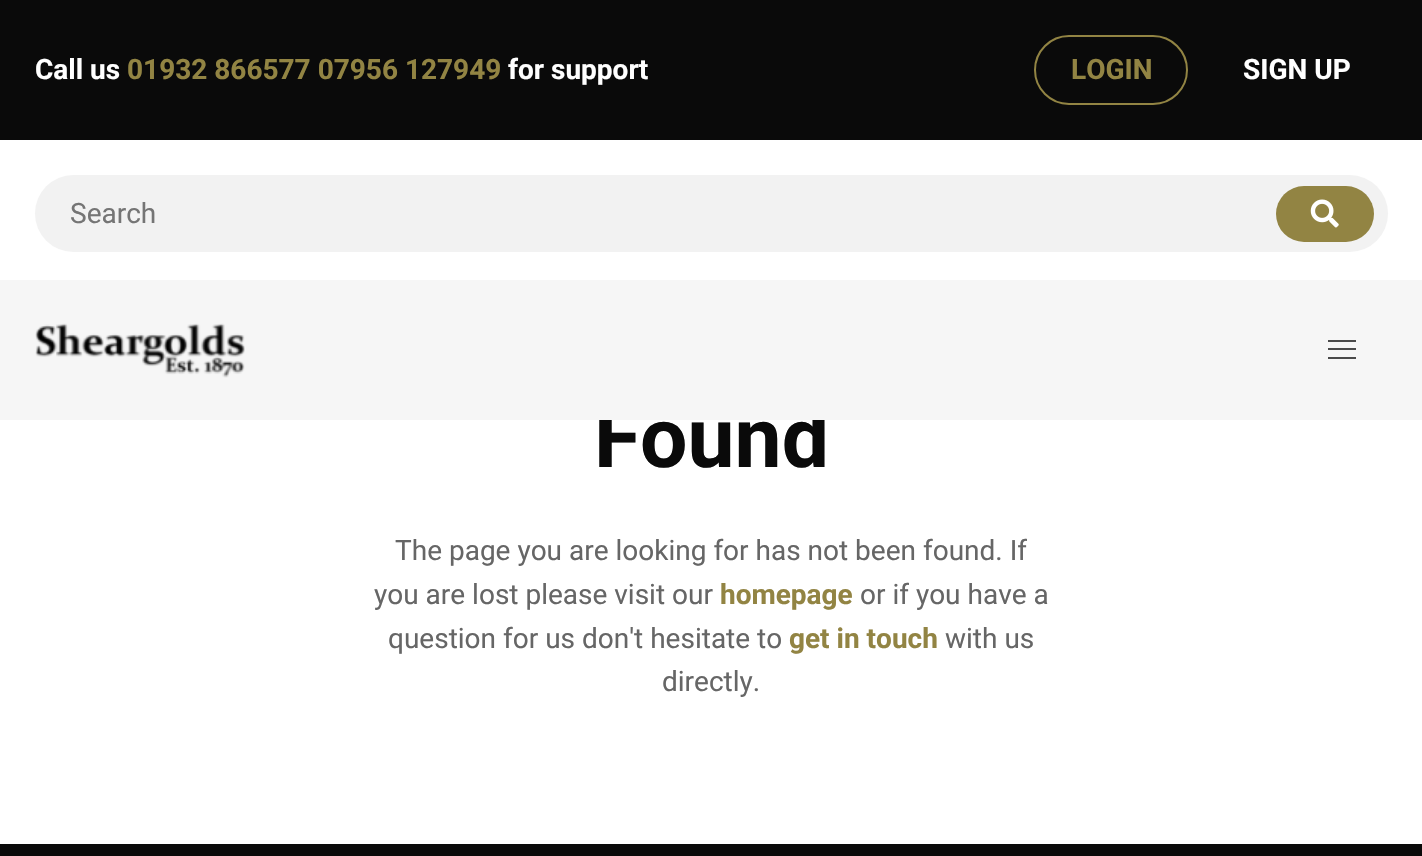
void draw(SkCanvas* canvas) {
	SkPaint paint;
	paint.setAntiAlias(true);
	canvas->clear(0xffffffff);
	paint.setColor(0xff0a0a0a);
	canvas->drawRect(SkRect::MakeXYWH(0, 0, 1422, 140), paint);
	SkFont f1(fontMgr->matchFamilyStyle("Roboto", SkFontStyle::Bold()), 28);
	f1.setSubpixel(true);
	paint.setColor(0xffffffff);
	canvas->drawString("Call us", 35, 79, f1, paint);
	paint.setColor(0xff928443);
	canvas->drawString("01932 866577 07956 127949", 127, 79, f1, paint);
	paint.setColor(0xffffffff);
	canvas->drawString("for support", 508, 79, f1, paint);
	paint.setStroke(true);
	paint.setStrokeWidth(2);
	paint.setColor(0xff928443);
	canvas->drawRoundRect(SkRect::MakeXYWH(1035, 36, 152, 68), 34, 34, paint);
	paint.setStroke(false);
	canvas->drawString("LOGIN", 1071, 79, f1, paint);
	paint.setColor(0xffffffff);
	canvas->drawString("SIGN UP", 1243, 79, f1, paint);
	paint.setColor(0xfff2f2f2);
	canvas->drawRoundRect(SkRect::MakeXYWH(35, 175, 1353, 77), 38.5, 38.5, paint);
	SkFont f2(fontMgr->matchFamilyStyle("Roboto", SkFontStyle::Normal()), 28);
	f2.setSubpixel(true);
	paint.setColor(0xff757575);
	canvas->drawString("Search", 70, 223, f2, paint);
	paint.setColor(0xff928443);
	canvas->drawRoundRect(SkRect::MakeXYWH(1276, 186, 98, 56), 28, 28, paint);
	canvas->drawImageRect(SkImages::DeferredFromEncodedData(SkData::MakeFromFileName("img1.png")), SkRect::MakeXYWH(1310, 199, 29, 29), SkSamplingOptions());
	SkFont f3(fontMgr->matchFamilyStyle("Roboto", SkFontStyle::Bold()), 84);
	f3.setSubpixel(true);
	paint.setColor(0xff0a0a0a);
	canvas->drawString("Found", 594, 467, f3, paint);
	paint.setColor(0xfff6f6f6);
	canvas->drawRect(SkRect::MakeXYWH(0, 280, 1422, 140), paint);
	canvas->drawImageRect(SkImages::DeferredFromEncodedData(SkData::MakeFromFileName("img2.png")), SkRect::MakeXYWH(35, 323, 210, 55), SkSamplingOptions());
	paint.setColor(0xff4a4a4a);
	canvas->drawRect(SkRect::MakeXYWH(1328, 340, 28, 2), paint);
	canvas->drawRect(SkRect::MakeXYWH(1328, 348, 28, 2), paint);
	canvas->drawRect(SkRect::MakeXYWH(1328, 357, 28, 2), paint);
	paint.setColor(0xff666666);
	canvas->drawString("The page you are looking for has not been found. If", 395, 560, f2, paint);
	canvas->drawString("you are lost please visit our", 374, 604, f2, paint);
	paint.setColor(0xff928443);
	canvas->drawString("homepage", 720, 604, f1, paint);
	paint.setColor(0xff666666);
	canvas->drawString("or if you have a", 860, 604, f2, paint);
	canvas->drawString("question for us don't hesitate to", 388, 648, f2, paint);
	paint.setColor(0xff928443);
	canvas->drawString("get in touch", 789, 648, f1, paint);
	paint.setColor(0xff666666);
	canvas->drawString("with us", 945, 648, f2, paint);
	canvas->drawString("directly.", 662, 691, f2, paint);
	paint.setColor(0xff0a0a0a);
	canvas->drawRect(SkRect::MakeXYWH(0, 844, 1422, 12), paint);
}
